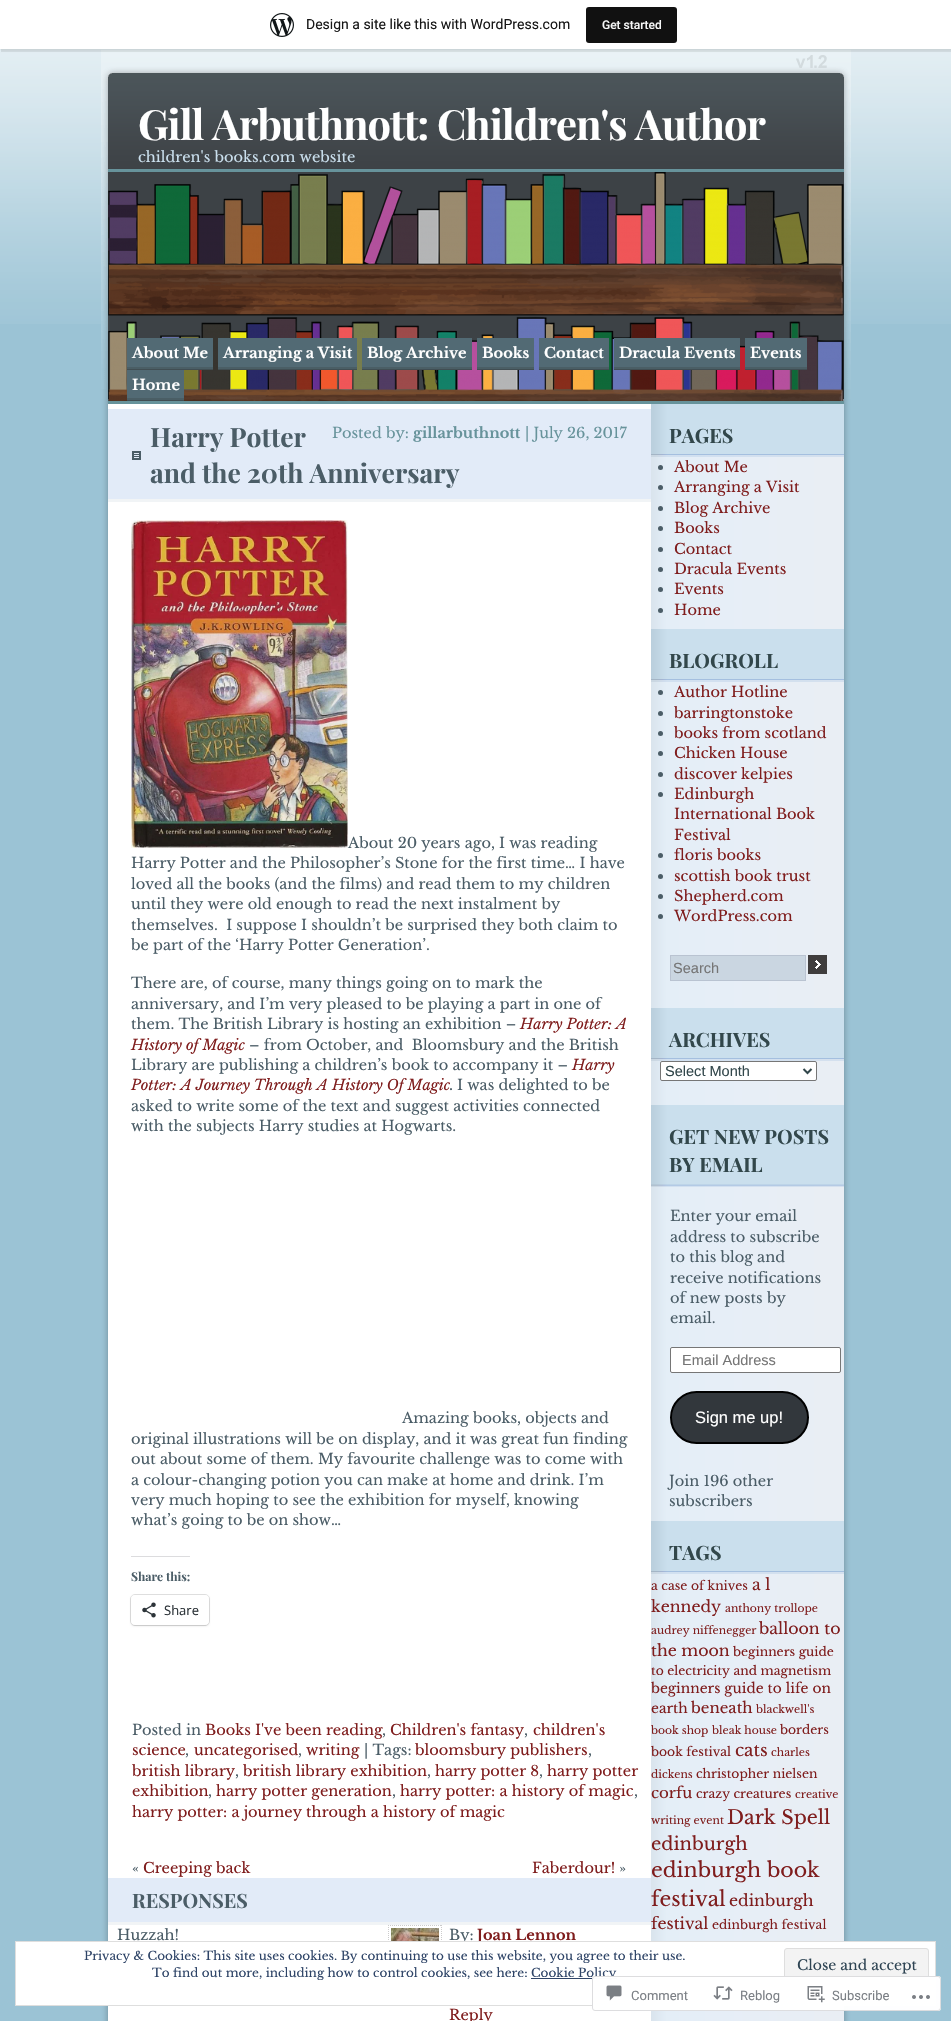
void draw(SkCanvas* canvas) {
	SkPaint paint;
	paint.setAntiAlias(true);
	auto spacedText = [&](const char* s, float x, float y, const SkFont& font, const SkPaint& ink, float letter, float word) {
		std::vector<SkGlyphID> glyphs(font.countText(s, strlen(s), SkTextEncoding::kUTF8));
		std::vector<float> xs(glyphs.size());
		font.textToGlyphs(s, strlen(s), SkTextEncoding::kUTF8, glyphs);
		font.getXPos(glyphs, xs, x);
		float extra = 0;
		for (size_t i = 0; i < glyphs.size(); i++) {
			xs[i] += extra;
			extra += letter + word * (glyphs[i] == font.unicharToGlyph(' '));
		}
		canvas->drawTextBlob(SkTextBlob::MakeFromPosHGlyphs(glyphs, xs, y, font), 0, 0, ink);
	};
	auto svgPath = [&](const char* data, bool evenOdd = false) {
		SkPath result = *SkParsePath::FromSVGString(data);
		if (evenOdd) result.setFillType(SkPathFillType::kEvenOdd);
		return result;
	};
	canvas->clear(0xff9bc3d5);
	canvas->drawImageRect(SkImages::DeferredFromEncodedData(SkData::MakeFromFileName("img1.png")), SkRect::MakeXYWH(0, 49, 951, 275), SkSamplingOptions());
	canvas->drawImageRect(SkImages::DeferredFromEncodedData(SkData::MakeFromFileName("img4.png")), SkRect::MakeXYWH(101, 49, 750, 350), SkSamplingOptions());
	paint.setColor(0x0d000000);
	paint.setMaskFilter(SkMaskFilter::MakeBlur(kNormal_SkBlurStyle, 1));
	canvas->drawRect(SkRect::MakeXYWH(0, 1, 951, 49), paint);
	paint.setMaskFilter(nullptr);
	paint.setColor(0x14000000);
	canvas->drawPath(svgPath("M1 49V52H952V3H951V49Z"), paint);
	paint.setColor(0xffffffff);
	canvas->drawRect(SkRect::MakeXYWH(0, 0, 951, 49), paint);
	canvas->drawImageRect(SkImages::DeferredFromEncodedData(SkData::MakeFromFileName("img2.png")), SkRect::MakeXYWH(270, 13, 24, 24), SkSamplingOptions());
	SkFont f1(fontMgr->matchFamilyStyle("Roboto", SkFontStyle::Normal()), 14);
	f1.setSubpixel(true);
	paint.setColor(0xff171717);
	canvas->drawString("Design a site like this with WordPress.com", 306, 29, f1, paint);
	paint.setColor(0xff111111);
	canvas->drawRoundRect(SkRect::MakeXYWH(586, 7, 91, 36), 3, 3, paint);
	SkFont f2(fontMgr->matchFamilyStyle("Roboto", SkFontStyle(500, SkFontStyle::kNormal_Width, SkFontStyle::kUpright_Slant)), 12);
	f2.setSubpixel(true);
	paint.setColor(0xfff6f7f7);
	canvas->drawString("Get started", 602, 29, f2, paint);
	canvas->drawImageRect(SkImages::DeferredFromEncodedData(SkData::MakeFromFileName("img3.png")), SkRect::MakeXYWH(101, 399, 750, 1622), SkSamplingOptions());
	SkFont f3(fontMgr->matchFamilyStyle("Playfair Display", SkFontStyle::Bold()), 41.6);
	f3.setSubpixel(true);
	paint.setColor(0xffffffff);
	spacedText("Gill Arbuthnott: Children's Author", 138, 140, f3, paint, -1, 0);
	SkFont f4(fontMgr->matchFamilyStyle("Libre Baskerville", SkFontStyle::Normal()), 14.55);
	f4.setSubpixel(true);
	paint.setColor(0xffcadfed);
	canvas->drawString("children's books.com website", 138, 162, f4, paint);
	canvas->drawImageRect(SkImages::DeferredFromEncodedData(SkData::MakeFromFileName("img5.png")), SkRect::MakeXYWH(108, 172, 736, 229), SkSamplingOptions());
	paint.setColor(0xff67939b);
	canvas->drawRect(SkRect::MakeXYWH(108, 169, 736, 3), paint);
	canvas->drawRect(SkRect::MakeXYWH(108, 401, 736, 3), paint);
	paint.setColor(0xff414e53);
	canvas->drawRect(SkRect::MakeXYWH(127, 369, 86, 1), paint);
	paint.setColor(0xff526a74);
	canvas->drawRect(SkRect::MakeXYWH(127, 338, 86, 29), paint);
	paint.setColor(0xff4a5e65);
	canvas->drawRect(SkRect::MakeXYWH(127, 367, 86, 2), paint);
	SkFont f5(fontMgr->matchFamilyStyle("Libre Baskerville", SkFontStyle::Bold()), 14.55);
	f5.setSubpixel(true);
	paint.setColor(0xffffffff);
	canvas->drawString("About Me", 132, 358, f5, paint);
	paint.setColor(0xff414e53);
	canvas->drawRect(SkRect::MakeXYWH(218, 369, 139, 1), paint);
	paint.setColor(0xff526a74);
	canvas->drawRect(SkRect::MakeXYWH(218, 338, 139, 29), paint);
	paint.setColor(0xff4a5e65);
	canvas->drawRect(SkRect::MakeXYWH(218, 367, 139, 2), paint);
	paint.setColor(0xffffffff);
	canvas->drawString("Arranging a Visit", 223, 358, f5, paint);
	paint.setColor(0xff414e53);
	canvas->drawRect(SkRect::MakeXYWH(362, 369, 110, 1), paint);
	paint.setColor(0xff526a74);
	canvas->drawRect(SkRect::MakeXYWH(362, 338, 110, 29), paint);
	paint.setColor(0xff4a5e65);
	canvas->drawRect(SkRect::MakeXYWH(362, 367, 110, 2), paint);
	paint.setColor(0xffffffff);
	canvas->drawString("Blog Archive", 367, 358, f5, paint);
	paint.setColor(0xff414e53);
	canvas->drawRect(SkRect::MakeXYWH(477, 369, 57, 1), paint);
	paint.setColor(0xff526a74);
	canvas->drawRect(SkRect::MakeXYWH(477, 338, 57, 29), paint);
	paint.setColor(0xff4a5e65);
	canvas->drawRect(SkRect::MakeXYWH(477, 367, 57, 2), paint);
	paint.setColor(0xffffffff);
	canvas->drawString("Books", 482, 358, f5, paint);
	paint.setColor(0xff414e53);
	canvas->drawRect(SkRect::MakeXYWH(539, 369, 70, 1), paint);
	paint.setColor(0xff526a74);
	canvas->drawRect(SkRect::MakeXYWH(539, 338, 70, 29), paint);
	paint.setColor(0xff4a5e65);
	canvas->drawRect(SkRect::MakeXYWH(539, 367, 70, 2), paint);
	paint.setColor(0xffffffff);
	canvas->drawString("Contact", 544, 358, f5, paint);
	paint.setColor(0xff414e53);
	canvas->drawRect(SkRect::MakeXYWH(614, 369, 126, 1), paint);
	paint.setColor(0xff526a74);
	canvas->drawRect(SkRect::MakeXYWH(614, 338, 126, 29), paint);
	paint.setColor(0xff4a5e65);
	canvas->drawRect(SkRect::MakeXYWH(614, 367, 126, 2), paint);
	paint.setColor(0xffffffff);
	canvas->drawString("Dracula Events", 619, 358, f5, paint);
	paint.setColor(0xff414e53);
	canvas->drawRect(SkRect::MakeXYWH(745, 369, 62, 1), paint);
	paint.setColor(0xff526a74);
	canvas->drawRect(SkRect::MakeXYWH(745, 338, 62, 29), paint);
	paint.setColor(0xff4a5e65);
	canvas->drawRect(SkRect::MakeXYWH(745, 367, 62, 2), paint);
	paint.setColor(0xffffffff);
	canvas->drawString("Events", 750, 358, f5, paint);
	paint.setColor(0xff414e53);
	canvas->drawRect(SkRect::MakeXYWH(127, 400, 57, 1), paint);
	paint.setColor(0xff526a74);
	canvas->drawRect(SkRect::MakeXYWH(127, 370, 57, 28), paint);
	paint.setColor(0xff4a5e65);
	canvas->drawRect(SkRect::MakeXYWH(127, 398, 57, 2), paint);
	paint.setColor(0xffffffff);
	canvas->drawString("Home", 132, 390, f5, paint);
	paint.setColor(0xffe2ebf8);
	canvas->drawRect(SkRect::MakeXYWH(108, 409, 543, 90), paint);
	paint.setColor(0xfff1f4f6);
	canvas->drawRect(SkRect::MakeXYWH(108, 499, 543, 3), paint);
	canvas->drawImageRect(SkImages::DeferredFromEncodedData(SkData::MakeFromFileName("img6.png")), SkRect::MakeXYWH(132, 451, 9, 9), SkSamplingOptions());
	SkFont f6(fontMgr->matchFamilyStyle("Playfair Display", SkFontStyle::Bold()), 26.5);
	f6.setSubpixel(true);
	paint.setColor(0xff4b5d67);
	canvas->drawString("Harry Potter", 150, 447, f6, paint);
	canvas->drawString("and the 20th Anniversary", 150, 483, f6, paint);
	paint.setColor(0xff67939b);
	canvas->drawString("Posted by:", 332, 438, f4, paint);
	canvas->drawString("gillarbuthnott", 413, 438, f5, paint);
	canvas->drawString("| July 26, 2017", 525, 438, f4, paint);
	canvas->drawImageRect(SkImages::DeferredFromEncodedData(SkData::MakeFromFileName("img7.png")), SkRect::MakeXYWH(131, 520, 217, 328), SkSamplingOptions());
	paint.setColor(0xff4b5d67);
	canvas->drawString("About 20 years ago, I was reading", 348, 848, f4, paint);
	canvas->drawString("Harry Potter and the Philosopher’s Stone for the first time… I have", 131, 868, f4, paint);
	canvas->drawString("loved all the books (and the films) and read them to my children", 131, 889, f4, paint);
	canvas->drawString("until they were old enough to read the next instalment by", 131, 909, f4, paint);
	canvas->drawString("themselves.  I suppose I shouldn’t be surprised they both claim to", 131, 930, f4, paint);
	canvas->drawString("be part of the ‘Harry Potter Generation’.", 131, 950, f4, paint);
	canvas->drawString("There are, of course, many things going on to mark the", 131, 988, f4, paint);
	canvas->drawString("anniversary, and I’m very pleased to be playing a part in one of", 131, 1009, f4, paint);
	canvas->drawString("them. The British Library is hosting an exhibition –", 131, 1029, f4, paint);
	SkFont f7(fontMgr->matchFamilyStyle("Libre Baskerville", SkFontStyle::Italic()), 14.55);
	f7.setSubpixel(true);
	paint.setColor(0xff7f1d1d);
	canvas->drawString("Harry Potter: A", 520, 1029, f7, paint);
	canvas->drawString("History of Magic", 131, 1050, f7, paint);
	paint.setColor(0xff4b5d67);
	canvas->drawString("– from October, and  Bloomsbury and the British", 249, 1050, f4, paint);
	canvas->drawString("Library are publishing a children’s book to accompany it –", 131, 1070, f4, paint);
	paint.setColor(0xff7f1d1d);
	canvas->drawString("Harry", 572, 1070, f7, paint);
	canvas->drawString("Potter: A Journey Through A History Of Magic", 131, 1090, f7, paint);
	paint.setColor(0xff4b5d67);
	canvas->drawString(".", 450, 1090, f7, paint);
	canvas->drawString("I was delighted to be", 457, 1090, f4, paint);
	canvas->drawString("asked to write some of the text and suggest activities connected", 131, 1111, f4, paint);
	canvas->drawString("with the subjects Harry studies at Hogwarts.", 131, 1131, f4, paint);
	canvas->drawString("Amazing books, objects and", 402, 1423, f4, paint);
	canvas->drawString("original illustrations will be on display, and it was great fun finding", 131, 1444, f4, paint);
	canvas->drawString("out about some of them. My favourite challenge was to come with", 131, 1464, f4, paint);
	canvas->drawString("a colour-changing potion you can make at home and drink. I’m", 131, 1485, f4, paint);
	canvas->drawString("very much hoping to see the exhibition for myself, knowing", 131, 1505, f4, paint);
	canvas->drawString("what’s going to be on show…", 131, 1525, f4, paint);
	paint.setColor(0xffdcdcde);
	canvas->drawRect(SkRect::MakeXYWH(131, 1556, 59, 1), paint);
	SkFont f8(fontMgr->matchFamilyStyle("Playfair Display", SkFontStyle::Bold()), 12);
	f8.setSubpixel(true);
	paint.setColor(0xff4b5d67);
	canvas->drawString("Share this:", 131, 1581, f8, paint);
	paint.setStroke(true);
	paint.setStrokeWidth(1);
	paint.setColor(0xffe0e0e0);
	canvas->drawRoundRect(SkRect::MakeXYWH(130.5, 1594.5, 79, 31), 4.5, 4.5, paint);
	paint.setStroke(false);
	paint.setColor(0x1f000000);
	paint.setMaskFilter(SkMaskFilter::MakeBlur(kNormal_SkBlurStyle, 1));
	canvas->drawRoundRect(SkRect::MakeXYWH(131, 1596, 78, 30), 4, 4, paint);
	paint.setMaskFilter(nullptr);
	paint.setColor(0xffffffff);
	canvas->drawRoundRect(SkRect::MakeXYWH(131, 1595, 78, 30), 4, 4, paint);
	canvas->drawImageRect(SkImages::DeferredFromEncodedData(SkData::MakeFromFileName("img8.png")), SkRect::MakeXYWH(142, 1602, 14, 16), SkSamplingOptions());
	SkFont f9(fontMgr->matchFamilyStyle("Open Sans", SkFontStyle::Normal()), 13);
	f9.setSubpixel(true);
	paint.setColor(0xff2c3338);
	canvas->drawString("Share", 164, 1615, f9, paint);
	paint.setColor(0xff4b5d67);
	canvas->drawString("Posted in", 132, 1735, f4, paint);
	paint.setColor(0xff7f1d1d);
	canvas->drawString("Books I've been reading", 205, 1735, f4, paint);
	paint.setColor(0xff4b5d67);
	canvas->drawString(",", 382, 1735, f4, paint);
	paint.setColor(0xff7f1d1d);
	canvas->drawString("Children's fantasy", 390, 1735, f4, paint);
	paint.setColor(0xff4b5d67);
	canvas->drawString(",", 524, 1735, f4, paint);
	paint.setColor(0xff7f1d1d);
	canvas->drawString("children's", 533, 1735, f4, paint);
	canvas->drawString("science", 132, 1755, f4, paint);
	paint.setColor(0xff4b5d67);
	canvas->drawString(",", 185, 1755, f4, paint);
	paint.setColor(0xff7f1d1d);
	canvas->drawString("uncategorised", 194, 1755, f4, paint);
	paint.setColor(0xff4b5d67);
	canvas->drawString(",", 298, 1755, f4, paint);
	paint.setColor(0xff7f1d1d);
	canvas->drawString("writing", 306, 1755, f4, paint);
	paint.setColor(0xff4b5d67);
	canvas->drawString("| Tags:", 364, 1755, f4, paint);
	paint.setColor(0xff7f1d1d);
	canvas->drawString("bloomsbury publishers", 415, 1755, f4, paint);
	paint.setColor(0xff4b5d67);
	canvas->drawString(",", 588, 1755, f4, paint);
	paint.setColor(0xff7f1d1d);
	canvas->drawString("british library", 132, 1776, f4, paint);
	paint.setColor(0xff4b5d67);
	canvas->drawString(",", 235, 1776, f4, paint);
	paint.setColor(0xff7f1d1d);
	canvas->drawString("british library exhibition", 243, 1776, f4, paint);
	paint.setColor(0xff4b5d67);
	canvas->drawString(",", 427, 1776, f4, paint);
	paint.setColor(0xff7f1d1d);
	canvas->drawString("harry potter 8", 435, 1776, f4, paint);
	paint.setColor(0xff4b5d67);
	canvas->drawString(",", 539, 1776, f4, paint);
	paint.setColor(0xff7f1d1d);
	canvas->drawString("harry potter", 547, 1776, f4, paint);
	canvas->drawString("exhibition", 132, 1796, f4, paint);
	paint.setColor(0xff4b5d67);
	canvas->drawString(",", 208, 1796, f4, paint);
	paint.setColor(0xff7f1d1d);
	canvas->drawString("harry potter generation", 216, 1796, f4, paint);
	paint.setColor(0xff4b5d67);
	canvas->drawString(",", 392, 1796, f4, paint);
	paint.setColor(0xff7f1d1d);
	canvas->drawString("harry potter: a history of magic", 400, 1796, f4, paint);
	paint.setColor(0xff4b5d67);
	canvas->drawString(",", 634, 1796, f4, paint);
	paint.setColor(0xff7f1d1d);
	canvas->drawString("harry potter: a journey through a history of magic", 132, 1817, f4, paint);
	paint.setColor(0xff4b5d67);
	canvas->drawString("«", 132, 1873, f4, paint);
	paint.setColor(0xff7f1d1d);
	canvas->drawString("Creeping back", 143, 1873, f4, paint);
	canvas->drawString("Faberdour!", 532, 1873, f4, paint);
	paint.setColor(0xff4b5d67);
	canvas->drawString("»", 619, 1873, f4, paint);
	paint.setColor(0xffe2ebf8);
	canvas->drawRect(SkRect::MakeXYWH(108, 1878, 543, 44), paint);
	paint.setColor(0xfff1f4f6);
	canvas->drawRect(SkRect::MakeXYWH(108, 1922, 543, 3), paint);
	SkFont f10(fontMgr->matchFamilyStyle("Playfair Display", SkFontStyle::Bold()), 19.75);
	f10.setSubpixel(true);
	paint.setColor(0xff4b5d67);
	canvas->drawString("RESPONSES", 132, 1908, f10, paint);
	canvas->drawString("Huzzah!", 117, 1940, f4, paint);
	paint.setStroke(true);
	paint.setColor(0xffcccccc);
	paint.setPathEffect(SkDashPathEffect::Make({{1, 1}}, 0));
	canvas->drawPath(svgPath("M388 1925.5H442M441.5 1925V1979M388.5 1925V1979"), paint);
	paint.setPathEffect(nullptr);
	canvas->drawImageRect(SkImages::DeferredFromEncodedData(SkData::MakeFromFileName("img9.png")), SkRect::MakeXYWH(391, 1928, 48, 13), SkSamplingOptions());
	paint.setStroke(false);
	paint.setColor(0xff4b5d67);
	canvas->drawString("By:", 449, 1940, f4, paint);
	paint.setColor(0xff7f1d1d);
	canvas->drawString("Joan Lennon", 477, 1940, f5, paint);
	canvas->drawString("Reply", 449, 2020, f4, paint);
	canvas->drawImageRect(SkImages::DeferredFromEncodedData(SkData::MakeFromFileName("img10.png")), SkRect::MakeXYWH(651, 404, 193, 53), SkSamplingOptions());
	paint.setColor(0xff32474b);
	canvas->drawString("PAGES", 669, 443, f10, paint);
	paint.setColor(0xff4b5d67);
	canvas->drawCircle(660.5, 467.5, 2.5, paint);
	paint.setColor(0xff7f1d1d);
	canvas->drawString("About Me", 674, 472, f4, paint);
	paint.setColor(0xff4b5d67);
	canvas->drawCircle(660.5, 487.5, 2.5, paint);
	paint.setColor(0xff7f1d1d);
	canvas->drawString("Arranging a Visit", 674, 492, f4, paint);
	paint.setColor(0xff4b5d67);
	canvas->drawCircle(660.5, 508.5, 2.5, paint);
	paint.setColor(0xff7f1d1d);
	canvas->drawString("Blog Archive", 674, 513, f4, paint);
	paint.setColor(0xff4b5d67);
	canvas->drawCircle(660.5, 528.5, 2.5, paint);
	paint.setColor(0xff7f1d1d);
	canvas->drawString("Books", 674, 533, f4, paint);
	paint.setColor(0xff4b5d67);
	canvas->drawCircle(660.5, 549.5, 2.5, paint);
	paint.setColor(0xff7f1d1d);
	canvas->drawString("Contact", 674, 554, f4, paint);
	paint.setColor(0xff4b5d67);
	canvas->drawCircle(660.5, 569.5, 2.5, paint);
	paint.setColor(0xff7f1d1d);
	canvas->drawString("Dracula Events", 674, 574, f4, paint);
	paint.setColor(0xff4b5d67);
	canvas->drawCircle(660.5, 589.5, 2.5, paint);
	paint.setColor(0xff7f1d1d);
	canvas->drawString("Events", 674, 594, f4, paint);
	paint.setColor(0xff4b5d67);
	canvas->drawCircle(660.5, 610.5, 2.5, paint);
	paint.setColor(0xff7f1d1d);
	canvas->drawString("Home", 674, 615, f4, paint);
	canvas->drawImageRect(SkImages::DeferredFromEncodedData(SkData::MakeFromFileName("img10.png")), SkRect::MakeXYWH(651, 629, 193, 53), SkSamplingOptions());
	paint.setColor(0xff32474b);
	canvas->drawString("BLOGROLL", 669, 668, f10, paint);
	paint.setColor(0xff4b5d67);
	canvas->drawCircle(660.5, 692.5, 2.5, paint);
	paint.setColor(0xff7f1d1d);
	canvas->drawString("Author Hotline", 674, 697, f4, paint);
	paint.setColor(0xff4b5d67);
	canvas->drawCircle(660.5, 713.5, 2.5, paint);
	paint.setColor(0xff7f1d1d);
	canvas->drawString("barringtonstoke", 674, 718, f4, paint);
	paint.setColor(0xff4b5d67);
	canvas->drawCircle(660.5, 733.5, 2.5, paint);
	paint.setColor(0xff7f1d1d);
	canvas->drawString("books from scotland", 674, 738, f4, paint);
	paint.setColor(0xff4b5d67);
	canvas->drawCircle(660.5, 753.5, 2.5, paint);
	paint.setColor(0xff7f1d1d);
	canvas->drawString("Chicken House", 674, 758, f4, paint);
	paint.setColor(0xff4b5d67);
	canvas->drawCircle(660.5, 774.5, 2.5, paint);
	paint.setColor(0xff7f1d1d);
	canvas->drawString("discover kelpies", 674, 779, f4, paint);
	paint.setColor(0xff4b5d67);
	canvas->drawCircle(660.5, 794.5, 2.5, paint);
	paint.setColor(0xff7f1d1d);
	canvas->drawString("Edinburgh", 674, 799, f4, paint);
	canvas->drawString("International Book", 674, 819, f4, paint);
	canvas->drawString("Festival", 674, 840, f4, paint);
	paint.setColor(0xff4b5d67);
	canvas->drawCircle(660.5, 855.5, 2.5, paint);
	paint.setColor(0xff7f1d1d);
	canvas->drawString("floris books", 674, 860, f4, paint);
	paint.setColor(0xff4b5d67);
	canvas->drawCircle(660.5, 876.5, 2.5, paint);
	paint.setColor(0xff7f1d1d);
	canvas->drawString("scottish book trust", 674, 881, f4, paint);
	paint.setColor(0xff4b5d67);
	canvas->drawCircle(660.5, 896.5, 2.5, paint);
	paint.setColor(0xff7f1d1d);
	canvas->drawString("Shepherd.com", 674, 901, f4, paint);
	paint.setColor(0xff4b5d67);
	canvas->drawCircle(660.5, 916.5, 2.5, paint);
	paint.setColor(0xff7f1d1d);
	canvas->drawString("WordPress.com", 674, 921, f4, paint);
	paint.setColor(0xffcad6e1);
	canvas->drawRect(SkRect::MakeXYWH(670.5, 955.5, 135, 25), paint);
	paint.setStroke(true);
	paint.setColor(0xffb9c3d1);
	canvas->drawRect(SkRect::MakeXYWH(670.5, 955.5, 135, 25), paint);
	SkFont f11(fontMgr->matchFamilyStyle("Liberation Sans", SkFontStyle::Normal()), 14.55);
	f11.setSubpixel(true);
	paint.setStroke(false);
	paint.setColor(0xff757575);
	canvas->drawString("Search", 673, 973, f11, paint);
	canvas->drawImageRect(SkImages::DeferredFromEncodedData(SkData::MakeFromFileName("img11.png")), SkRect::MakeXYWH(808, 955, 19, 19), SkSamplingOptions());
	canvas->drawImageRect(SkImages::DeferredFromEncodedData(SkData::MakeFromFileName("img10.png")), SkRect::MakeXYWH(651, 1008, 193, 53), SkSamplingOptions());
	paint.setColor(0xff32474b);
	canvas->drawString("ARCHIVES", 669, 1047, f10, paint);
	paint.setColor(0xffffffff);
	canvas->drawRoundRect(SkRect::MakeXYWH(660.5, 1061.5, 156, 19), 1.5, 1.5, paint);
	paint.setStroke(true);
	paint.setColor(0xff767676);
	canvas->drawRoundRect(SkRect::MakeXYWH(660.5, 1061.5, 156, 19), 1.5, 1.5, paint);
	paint.setStrokeWidth(2);
	paint.setColor(0xff32474b);
	canvas->drawPath(svgPath("M803.5 1069L807.5 1073L811.5 1069"), paint);
	paint.setStroke(false);
	canvas->drawString("Select Month", 665, 1076, f11, paint);
	canvas->drawImageRect(SkImages::DeferredFromEncodedData(SkData::MakeFromFileName("img12.png")), SkRect::MakeXYWH(651, 1105, 193, 82), SkSamplingOptions());
	canvas->drawString("GET NEW POSTS", 669, 1144, f10, paint);
	canvas->drawString("BY EMAIL", 669, 1172, f10, paint);
	paint.setColor(0xff4b5d67);
	canvas->drawString("Enter your email", 670, 1221, f4, paint);
	canvas->drawString("address to subscribe", 670, 1242, f4, paint);
	canvas->drawString("to this blog and", 670, 1262, f4, paint);
	canvas->drawString("receive notifications", 670, 1283, f4, paint);
	canvas->drawString("of new posts by", 670, 1303, f4, paint);
	canvas->drawString("email.", 670, 1323, f4, paint);
	paint.setColor(0xffffffff);
	canvas->drawRoundRect(SkRect::MakeXYWH(670.5, 1347.5, 170, 25), 1.5, 1.5, paint);
	paint.setStroke(true);
	paint.setStrokeWidth(1);
	paint.setColor(0xff767676);
	canvas->drawRoundRect(SkRect::MakeXYWH(670.5, 1347.5, 170, 25), 1.5, 1.5, paint);
	paint.setStroke(false);
	paint.setColor(0xff757575);
	canvas->drawString("Email Address", 682, 1365, f11, paint);
	paint.setColor(0xff32373c);
	canvas->drawRoundRect(SkRect::MakeXYWH(671, 1392, 137, 51), 25.5, 25.5, paint);
	paint.setStroke(true);
	paint.setStrokeWidth(2);
	paint.setColor(0xff000000);
	canvas->drawRoundRect(SkRect::MakeXYWH(671, 1392, 137, 51), 25.5, 25.5, paint);
	SkFont f12(fontMgr->matchFamilyStyle("Liberation Sans", SkFontStyle::Normal()), 16.5);
	f12.setSubpixel(true);
	paint.setStroke(false);
	paint.setColor(0xffffffff);
	canvas->drawString("Sign me up!", 695, 1423, f12, paint);
	paint.setColor(0xff4b5d67);
	canvas->drawString("Join 196 other", 669, 1486, f4, paint);
	canvas->drawString("subscribers", 669, 1506, f4, paint);
	canvas->drawImageRect(SkImages::DeferredFromEncodedData(SkData::MakeFromFileName("img10.png")), SkRect::MakeXYWH(651, 1521, 193, 53), SkSamplingOptions());
	paint.setColor(0xff32474b);
	canvas->drawString("TAGS", 669, 1560, f10, paint);
	SkFont f13(fontMgr->matchFamilyStyle("Libre Baskerville", SkFontStyle::Normal()), 12.3);
	f13.setSubpixel(true);
	paint.setColor(0xff7f1d1d);
	canvas->drawString("a case of knives", 651, 1590, f13, paint);
	SkFont f14(fontMgr->matchFamilyStyle("Libre Baskerville", SkFontStyle::Normal()), 15.75);
	f14.setSubpixel(true);
	canvas->drawString("a l", 752, 1590, f14, paint);
	canvas->drawString("kennedy", 651, 1612, f14, paint);
	SkFont f15(fontMgr->matchFamilyStyle("Libre Baskerville", SkFontStyle::Normal()), 10.75);
	f15.setSubpixel(true);
	canvas->drawString("anthony trollope", 725, 1612, f15, paint);
	canvas->drawString("audrey niffenegger", 651, 1634, f15, paint);
	canvas->drawString("balloon to", 759, 1634, f14, paint);
	canvas->drawString("the moon", 651, 1656, f14, paint);
	canvas->drawString("beginners guide", 733, 1656, f13, paint);
	canvas->drawString("to electricity and magnetism", 651, 1675, f13, paint);
	SkFont f16(fontMgr->matchFamilyStyle("Libre Baskerville", SkFontStyle::Normal()), 13.75);
	f16.setSubpixel(true);
	canvas->drawString("beginners guide to life on", 651, 1693, f16, paint);
	canvas->drawString("earth", 651, 1713, f16, paint);
	SkFont f17(fontMgr->matchFamilyStyle("Libre Baskerville", SkFontStyle::Normal()), 15);
	f17.setSubpixel(true);
	canvas->drawString("beneath", 691, 1713, f17, paint);
	canvas->drawString("blackwell's", 756, 1713, f15, paint);
	canvas->drawString("book shop", 651, 1734, f15, paint);
	canvas->drawString("bleak house", 712, 1734, f15, paint);
	canvas->drawString("borders", 780, 1734, f13, paint);
	canvas->drawString("book festival", 651, 1756, f13, paint);
	SkFont f18(fontMgr->matchFamilyStyle("Libre Baskerville", SkFontStyle::Normal()), 17);
	f18.setSubpixel(true);
	canvas->drawString("cats", 735, 1756, f18, paint);
	canvas->drawString("charles", 771, 1756, f15, paint);
	canvas->drawString("dickens", 651, 1778, f15, paint);
	canvas->drawString("christopher nielsen", 696, 1778, f13, paint);
	canvas->drawString("corfu", 651, 1798, f17, paint);
	canvas->drawString("crazy creatures", 696, 1798, f13, paint);
	canvas->drawString("creative", 795, 1798, f15, paint);
	canvas->drawString("writing event", 651, 1824, f15, paint);
	SkFont f19(fontMgr->matchFamilyStyle("Libre Baskerville", SkFontStyle::Normal()), 19.25);
	f19.setSubpixel(true);
	canvas->drawString("Dark Spell", 727, 1824, f19, paint);
	SkFont f20(fontMgr->matchFamilyStyle("Libre Baskerville", SkFontStyle::Normal()), 18);
	f20.setSubpixel(true);
	canvas->drawString("edinburgh", 651, 1850, f20, paint);
	SkFont f21(fontMgr->matchFamilyStyle("Libre Baskerville", SkFontStyle::Normal()), 20.5);
	f21.setSubpixel(true);
	canvas->drawString("edinburgh book", 651, 1877, f21, paint);
	canvas->drawString("festival", 651, 1906, f21, paint);
	canvas->drawString("edinburgh", 729, 1906, f14, paint);
	canvas->drawString("festival", 651, 1929, f14, paint);
	canvas->drawString("edinburgh festival", 712, 1929, f13, paint);
	paint.setColor(0xffffffff);
	canvas->drawRect(SkRect::MakeXYWH(15.5, 1941.5, 920, 64), paint);
	paint.setStroke(true);
	paint.setStrokeWidth(1);
	paint.setColor(0xffdedede);
	canvas->drawRect(SkRect::MakeXYWH(15.5, 1941.5, 920, 64), paint);
	SkFont f22(fontMgr->matchFamilyStyle("Libre Baskerville", SkFontStyle::Normal()), 12);
	f22.setSubpixel(true);
	paint.setStroke(false);
	paint.setColor(0xff2e4467);
	canvas->drawString("Privacy & Cookies: This site uses cookies. By continuing to use this website, you agree to their use.", 84, 1960, f22, paint);
	paint.setColor(0xfff3f3f3);
	canvas->drawRoundRect(SkRect::MakeXYWH(784.5, 1948.5, 144, 34), 2.5, 2.5, paint);
	paint.setStroke(true);
	paint.setColor(0xffdedede);
	canvas->drawRoundRect(SkRect::MakeXYWH(784.5, 1948.5, 144, 34), 2.5, 2.5, paint);
	SkFont f23(fontMgr->matchFamilyStyle("Libre Baskerville", SkFontStyle::Normal()), 14);
	f23.setSubpixel(true);
	paint.setStroke(false);
	paint.setColor(0xff2e4453);
	canvas->drawString("Close and accept", 797, 1970, f23, paint);
	paint.setColor(0xff2e4467);
	canvas->drawString("To find out more, including how to control cookies, see here:", 152, 1977, f22, paint);
	canvas->drawRect(SkRect::MakeXYWH(531, 1978, 86, 1), paint);
	canvas->drawString("Cookie Policy", 531, 1977, f22, paint);
	paint.setColor(0xfaffffff);
	canvas->drawRoundRect(SkRect::MakeXYWH(592, 1976, 349, 35), 3, 3, paint);
	paint.setStroke(true);
	paint.setColor(0xfadcdcde);
	canvas->drawRoundRect(SkRect::MakeXYWH(592.5, 1976.5, 348, 34), 2.5, 2.5, paint);
	canvas->drawImageRect(SkImages::DeferredFromEncodedData(SkData::MakeFromFileName("img13.png")), SkRect::MakeXYWH(606, 1985, 16, 16), SkSamplingOptions());
	SkFont f24(fontMgr->matchFamilyStyle("Roboto", SkFontStyle::Normal()), 13);
	f24.setSubpixel(true);
	paint.setStroke(false);
	paint.setColor(0xff7b7f85);
	canvas->drawString("Comment", 631, 2000, f24, paint);
	canvas->drawImageRect(SkImages::DeferredFromEncodedData(SkData::MakeFromFileName("img14.png")), SkRect::MakeXYWH(713, 1986, 20, 14), SkSamplingOptions());
	canvas->drawString("Reblog", 740, 2000, f24, paint);
	canvas->drawImageRect(SkImages::DeferredFromEncodedData(SkData::MakeFromFileName("img15.png")), SkRect::MakeXYWH(807, 1986, 18, 17), SkSamplingOptions());
	canvas->drawString("Subscribe", 832, 2000, f24, paint);
	canvas->drawImageRect(SkImages::DeferredFromEncodedData(SkData::MakeFromFileName("img16.png")), SkRect::MakeXYWH(912, 1995, 18, 4), SkSamplingOptions());
}
